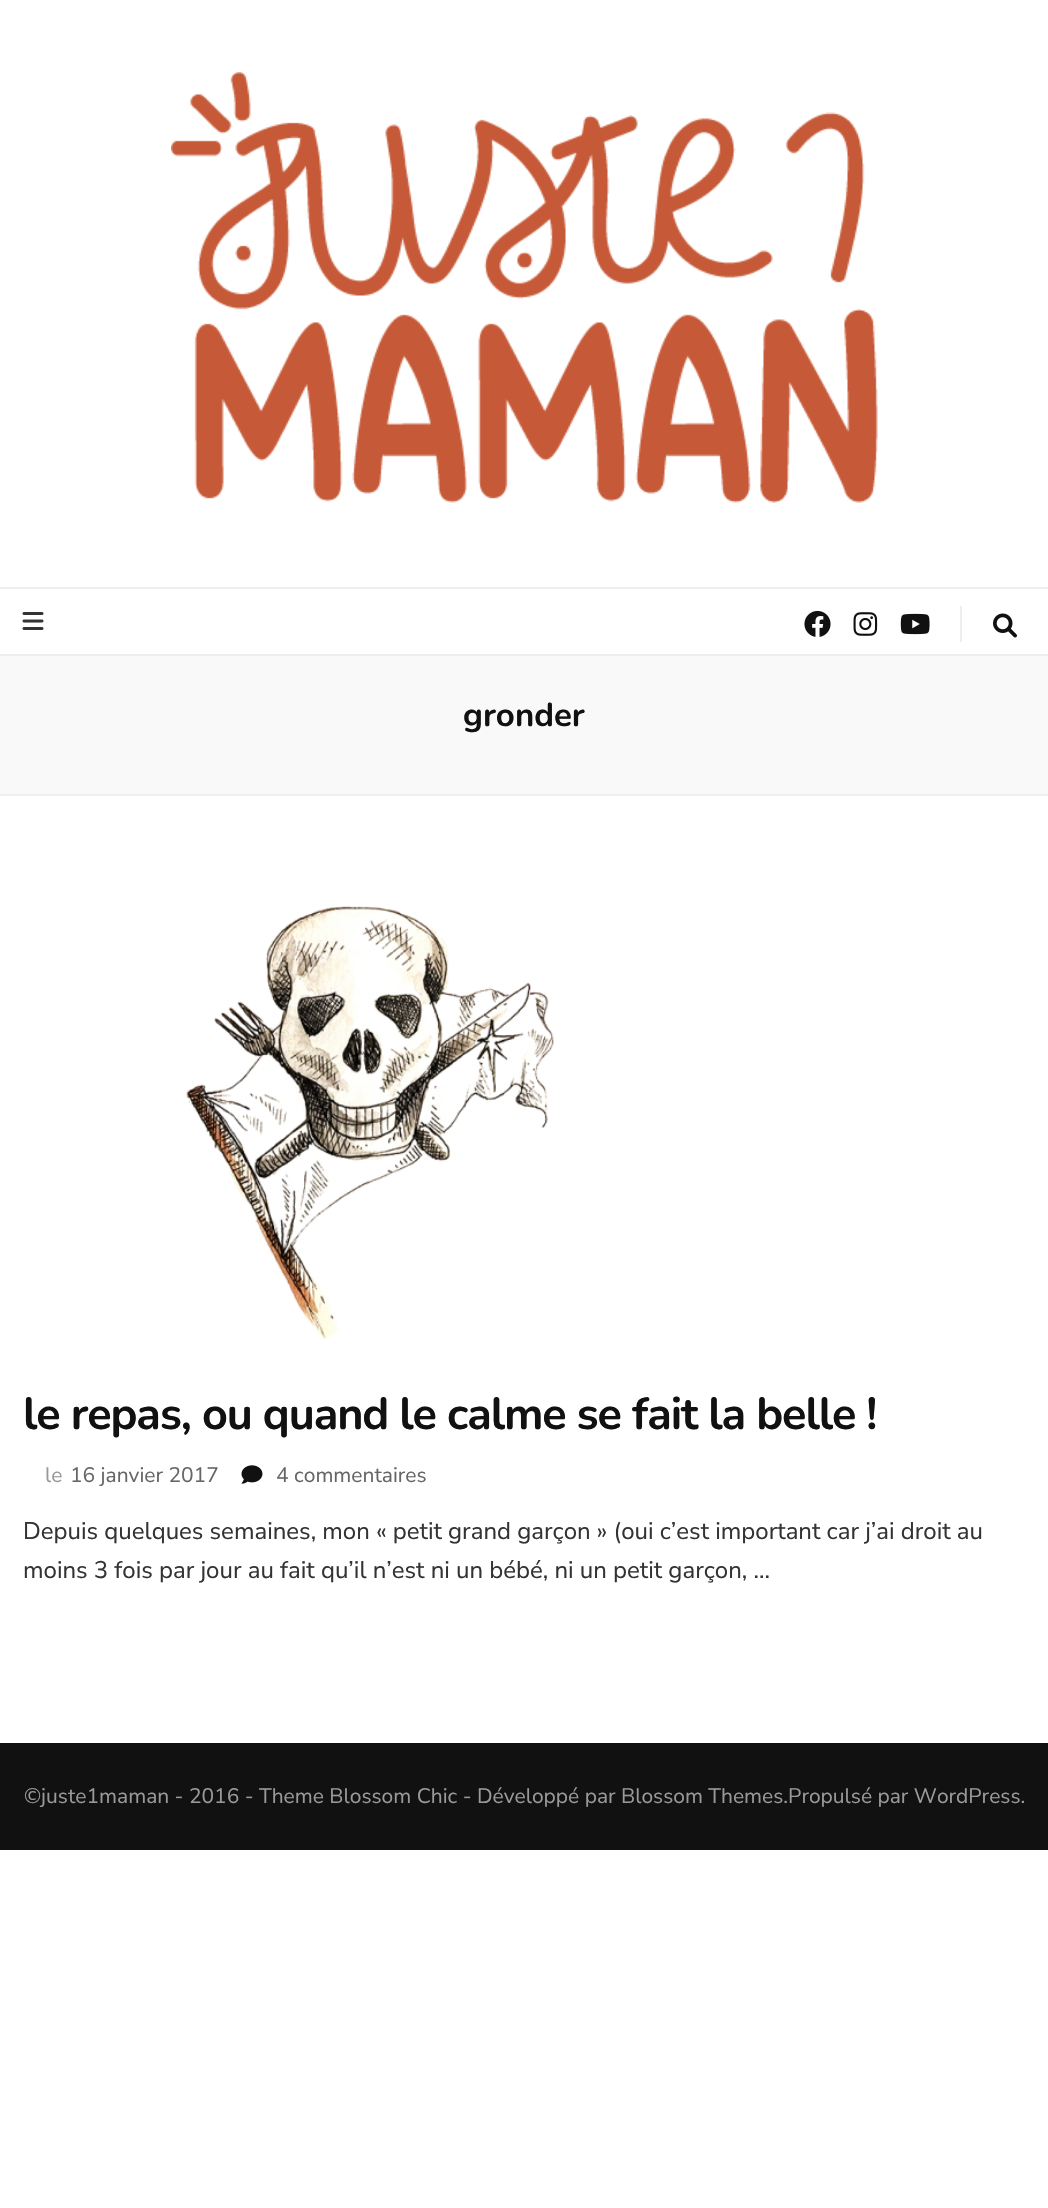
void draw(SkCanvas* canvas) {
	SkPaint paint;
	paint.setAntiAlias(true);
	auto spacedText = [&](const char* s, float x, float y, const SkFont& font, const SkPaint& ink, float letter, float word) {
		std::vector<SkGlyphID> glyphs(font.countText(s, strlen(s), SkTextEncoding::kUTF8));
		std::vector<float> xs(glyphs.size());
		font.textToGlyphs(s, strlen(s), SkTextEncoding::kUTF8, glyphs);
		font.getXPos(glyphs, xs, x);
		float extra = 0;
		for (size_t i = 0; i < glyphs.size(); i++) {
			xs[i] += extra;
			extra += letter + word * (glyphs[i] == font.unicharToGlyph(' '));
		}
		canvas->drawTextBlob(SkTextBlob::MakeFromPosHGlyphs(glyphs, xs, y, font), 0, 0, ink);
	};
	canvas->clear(0xffffffff);
	canvas->drawImageRect(SkImages::DeferredFromEncodedData(SkData::MakeFromFileName("img1.png")), SkRect::MakeXYWH(171, 72, 707, 431), SkSamplingOptions());
	paint.setColor(0xffeeeeee);
	canvas->drawRect(SkRect::MakeXYWH(0, 587, 1048, 2), paint);
	canvas->drawRect(SkRect::MakeXYWH(0, 654, 1048, 2), paint);
	canvas->drawImageRect(SkImages::DeferredFromEncodedData(SkData::MakeFromFileName("img2.png")), SkRect::MakeXYWH(22, 612, 22, 18), SkSamplingOptions());
	canvas->drawImageRect(SkImages::DeferredFromEncodedData(SkData::MakeFromFileName("img3.png")), SkRect::MakeXYWH(804, 610, 27, 27), SkSamplingOptions());
	canvas->drawImageRect(SkImages::DeferredFromEncodedData(SkData::MakeFromFileName("img4.png")), SkRect::MakeXYWH(853, 612, 25, 24), SkSamplingOptions());
	canvas->drawImageRect(SkImages::DeferredFromEncodedData(SkData::MakeFromFileName("img5.png")), SkRect::MakeXYWH(900, 613, 30, 22), SkSamplingOptions());
	canvas->drawRect(SkRect::MakeXYWH(960, 606, 2, 36), paint);
	canvas->drawImageRect(SkImages::DeferredFromEncodedData(SkData::MakeFromFileName("img6.png")), SkRect::MakeXYWH(993, 613, 24, 25), SkSamplingOptions());
	paint.setColor(0xfff9f9f9);
	canvas->drawRect(SkRect::MakeXYWH(0, 656, 1048, 138), paint);
	paint.setColor(0xffeeeeee);
	canvas->drawRect(SkRect::MakeXYWH(0, 794, 1048, 2), paint);
	SkFont f1(fontMgr->matchFamilyStyle("Nunito", SkFontStyle::Bold()), 33);
	f1.setSubpixel(true);
	paint.setColor(0xff111111);
	canvas->drawString("gronder", 463, 726, f1, paint);
	canvas->drawImageRect(SkImages::DeferredFromEncodedData(SkData::MakeFromFileName("img7.png")), SkRect::MakeXYWH(186, 906, 368, 434), SkSamplingOptions());
	SkFont f2(fontMgr->matchFamilyStyle("Nunito", SkFontStyle::Bold()), 45);
	f2.setSubpixel(true);
	spacedText("le repas, ou quand le calme se fait la belle !", 23, 1429, f2, paint, -1.1, 0);
	SkFont f3(fontMgr->matchFamilyStyle("Nunito Sans", SkFontStyle::Normal()), 21);
	f3.setSubpixel(true);
	paint.setColor(0xff999999);
	canvas->drawString("le", 45, 1482, f3, paint);
	paint.setColor(0xff666666);
	canvas->drawString("16 janvier 2017", 70, 1482, f3, paint);
	canvas->drawImageRect(SkImages::DeferredFromEncodedData(SkData::MakeFromFileName("img8.png")), SkRect::MakeXYWH(241, 1465, 22, 19), SkSamplingOptions());
	canvas->drawString("4 commentaires", 276, 1482, f3, paint);
	SkFont f4(fontMgr->matchFamilyStyle("Nunito Sans", SkFontStyle::Normal()), 24);
	f4.setSubpixel(true);
	paint.setColor(0xff333333);
	canvas->drawString("Depuis quelques semaines, mon « petit grand garçon » (oui c’est important car j’ai droit au", 23, 1539, f4, paint);
	canvas->drawString("moins 3 fois par jour au fait qu’il n’est ni un bébé, ni un petit garçon, …", 23, 1578, f4, paint);
	paint.setColor(0xff111111);
	canvas->drawRect(SkRect::MakeXYWH(0, 1743, 1048, 107), paint);
	paint.setColor(0xff999999);
	canvas->drawString("©juste1maman - 2016 - Theme Blossom Chic - Développé par Blossom Themes.Propulsé par WordPress.", 24, 1803, f3, paint);
}
